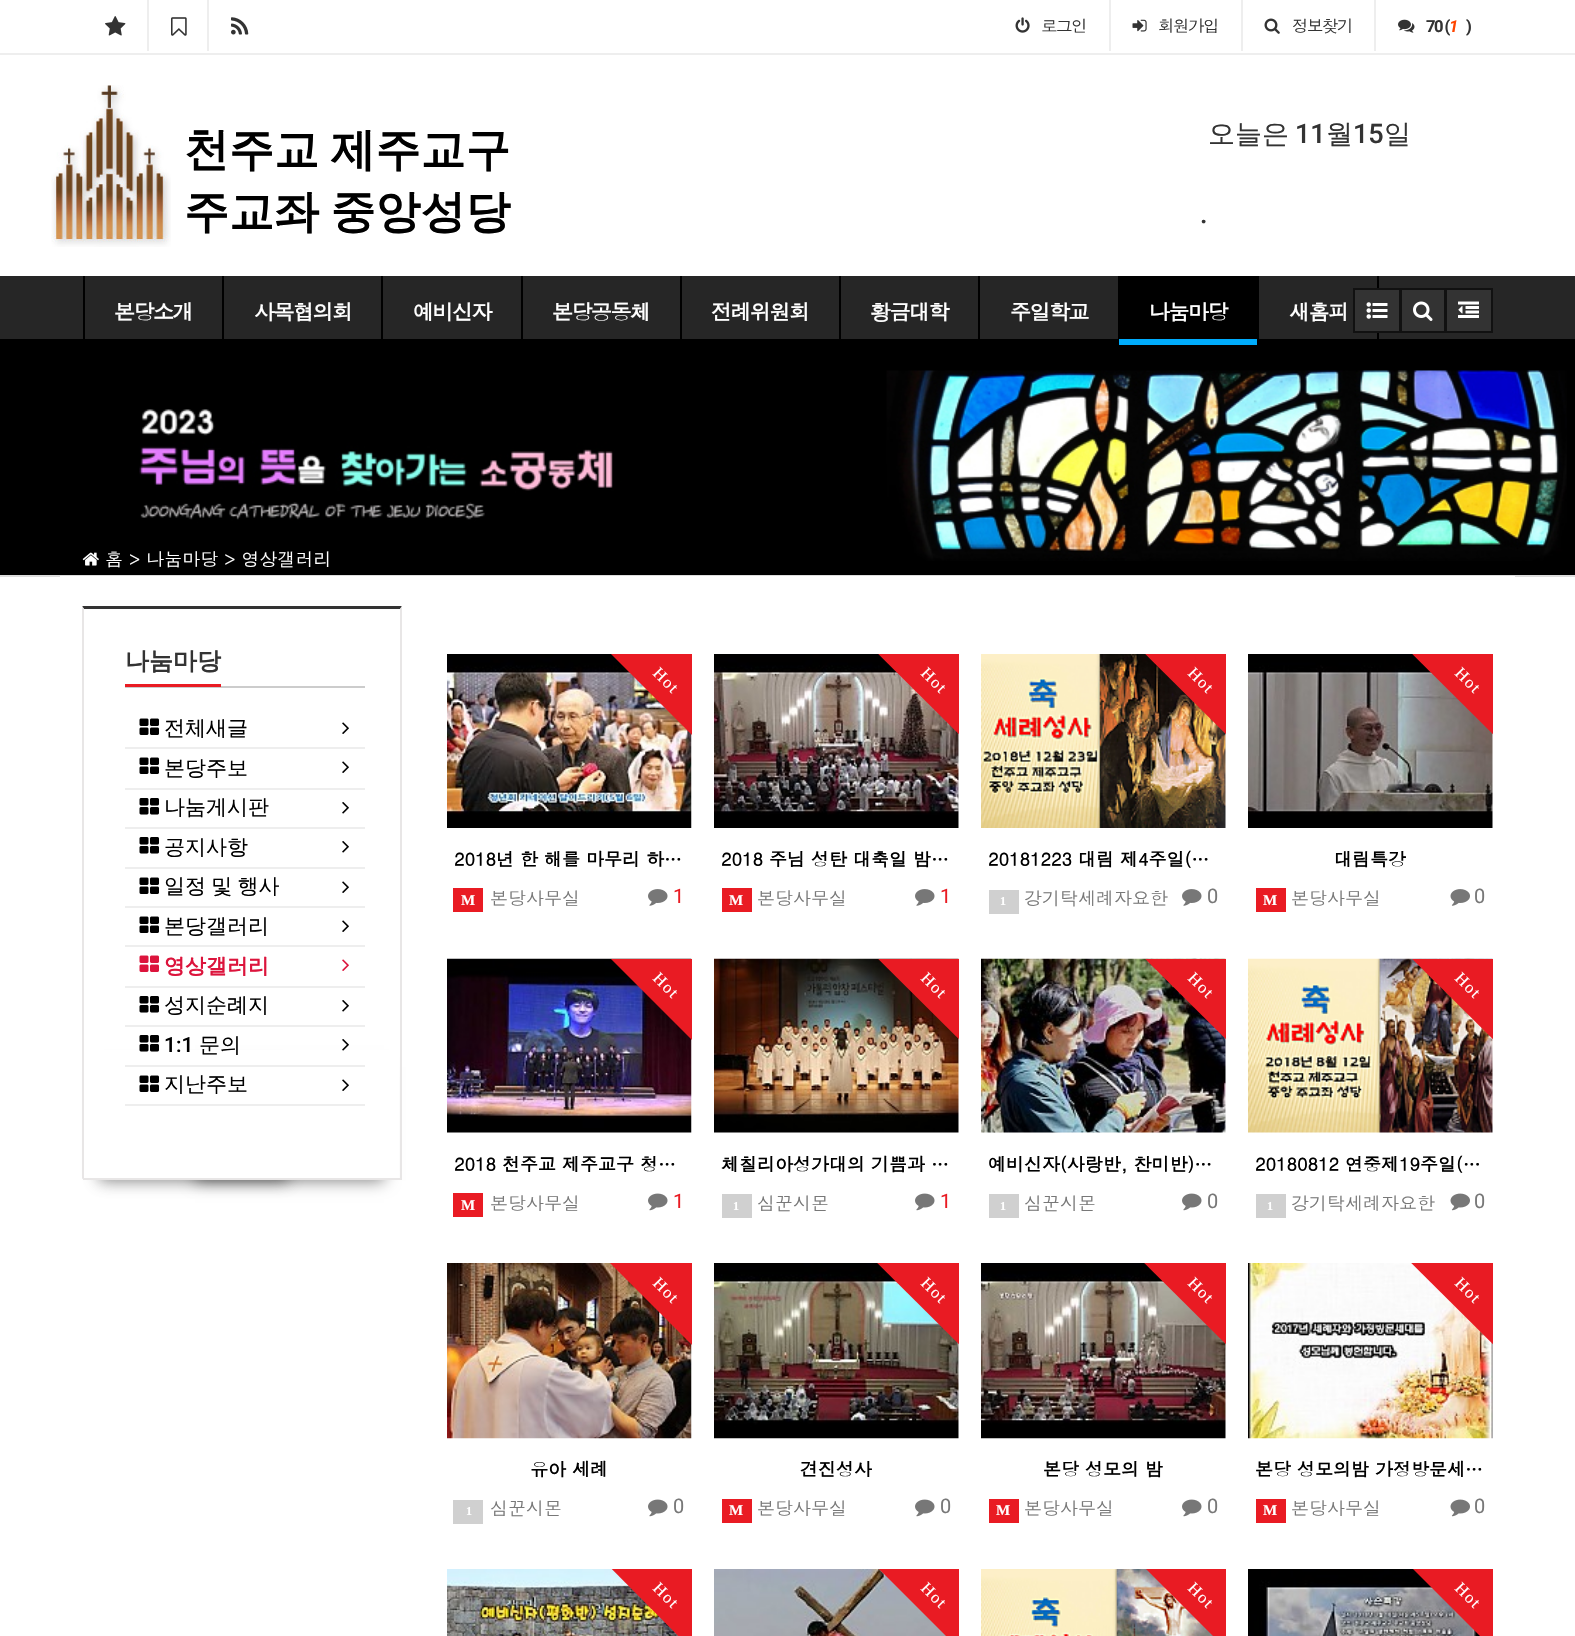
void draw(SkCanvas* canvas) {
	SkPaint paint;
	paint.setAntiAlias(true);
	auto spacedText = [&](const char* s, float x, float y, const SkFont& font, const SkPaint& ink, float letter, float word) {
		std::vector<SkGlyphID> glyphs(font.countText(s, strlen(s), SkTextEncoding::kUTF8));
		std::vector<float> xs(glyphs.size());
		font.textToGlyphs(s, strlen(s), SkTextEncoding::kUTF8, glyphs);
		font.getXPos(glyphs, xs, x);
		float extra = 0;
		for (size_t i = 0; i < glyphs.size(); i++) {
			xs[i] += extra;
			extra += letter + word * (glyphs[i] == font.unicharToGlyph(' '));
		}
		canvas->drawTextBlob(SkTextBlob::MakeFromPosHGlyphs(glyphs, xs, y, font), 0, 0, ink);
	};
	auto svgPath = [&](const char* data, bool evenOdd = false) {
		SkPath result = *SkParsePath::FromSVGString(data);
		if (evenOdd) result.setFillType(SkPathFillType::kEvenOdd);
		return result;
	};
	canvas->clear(0xffffffff);
	paint.setColor(0xffeeeeee);
	canvas->drawRect(SkRect::MakeXYWH(0, 53, 1575, 2), paint);
	canvas->drawRect(SkRect::MakeXYWH(147, 0, 2, 51), paint);
	canvas->drawImageRect(SkImages::DeferredFromEncodedData(SkData::MakeFromFileName("img1.png")), SkRect::MakeXYWH(105, 16, 21, 20), SkSamplingOptions());
	canvas->drawRect(SkRect::MakeXYWH(207, 0, 2, 51), paint);
	canvas->drawImageRect(SkImages::DeferredFromEncodedData(SkData::MakeFromFileName("img2.png")), SkRect::MakeXYWH(171, 17, 16, 19), SkSamplingOptions());
	canvas->drawImageRect(SkImages::DeferredFromEncodedData(SkData::MakeFromFileName("img3.png")), SkRect::MakeXYWH(231, 17, 18, 18), SkSamplingOptions());
	canvas->drawRect(SkRect::MakeXYWH(1109, 0, 2, 51), paint);
	canvas->drawImageRect(SkImages::DeferredFromEncodedData(SkData::MakeFromFileName("img4.png")), SkRect::MakeXYWH(1015, 17, 15, 16), SkSamplingOptions());
	SkFont f1(fontMgr->matchFamilyStyle("Dotum", SkFontStyle::Normal()), 16.5);
	f1.setSubpixel(true);
	paint.setColor(0xff333333);
	spacedText("로그인", 1041, 32, f1, paint, -1.5, 0);
	paint.setColor(0xffeeeeee);
	canvas->drawRect(SkRect::MakeXYWH(1241, 0, 2, 51), paint);
	canvas->drawImageRect(SkImages::DeferredFromEncodedData(SkData::MakeFromFileName("img5.png")), SkRect::MakeXYWH(1132, 19, 15, 13), SkSamplingOptions());
	paint.setColor(0xff333333);
	spacedText("회원가입", 1158, 32, f1, paint, -1.5, 0);
	paint.setColor(0xffeeeeee);
	canvas->drawRect(SkRect::MakeXYWH(1374, 0, 2, 51), paint);
	canvas->drawImageRect(SkImages::DeferredFromEncodedData(SkData::MakeFromFileName("img6.png")), SkRect::MakeXYWH(1264, 18, 16, 16), SkSamplingOptions());
	paint.setColor(0xff333333);
	spacedText("정보찾기", 1292, 32, f1, paint, -1.5, 0);
	canvas->drawImageRect(SkImages::DeferredFromEncodedData(SkData::MakeFromFileName("img7.png")), SkRect::MakeXYWH(1398, 19, 17, 14), SkSamplingOptions());
	SkFont f2(fontMgr->matchFamilyStyle("Roboto", SkFontStyle::Bold()), 16.5);
	f2.setSubpixel(true);
	spacedText("70 (", 1426, 32, f2, paint, -1.5, 0);
	SkFont f3(fontMgr->matchFamilyStyle("Roboto", SkFontStyle::BoldItalic()), 16.5);
	f3.setSubpixel(true);
	paint.setColor(0xffff4500);
	spacedText("1", 1449, 32, f3, paint, -1.5, 0);
	paint.setColor(0xff333333);
	spacedText(")", 1466, 32, f2, paint, -1.5, 0);
	canvas->drawImageRect(SkImages::DeferredFromEncodedData(SkData::MakeFromFileName("img8.png")), SkRect::MakeXYWH(51, 85, 120, 162), SkSamplingOptions());
	SkFont f4(fontMgr->matchFamilyStyle("WenQuanYi Zen Hei", SkFontStyle::Bold()), 45);
	f4.setSubpixel(true);
	paint.setColor(0xff000000);
	spacedText("천주교 제주교구", 184, 165, f4, paint, 0, -2);
	spacedText("주교좌 중앙성당", 184, 227, f4, paint, 0, -2);
	SkFont f5(fontMgr->matchFamilyStyle("WenQuanYi Zen Hei", SkFontStyle(500, SkFontStyle::kNormal_Width, SkFontStyle::kUpright_Slant)), 27);
	f5.setSubpixel(true);
	paint.setColor(0xff333333);
	canvas->drawString("오늘은", 1208, 143, f5, paint);
	SkFont f6(fontMgr->matchFamilyStyle("Roboto", SkFontStyle(500, SkFontStyle::kNormal_Width, SkFontStyle::kUpright_Slant)), 27);
	f6.setSubpixel(true);
	canvas->drawString("11", 1295, 143, f6, paint);
	canvas->drawString("월", 1326, 143, f5, paint);
	canvas->drawString("15", 1353, 143, f6, paint);
	canvas->drawString("일", 1384, 143, f5, paint);
	canvas->drawString(".", 1200, 223, f6, paint);
	paint.setColor(0xff262626);
	canvas->drawRect(SkRect::MakeXYWH(0, 276, 1575, 63), paint);
	paint.setColor(0xff000000);
	canvas->drawRect(SkRect::MakeXYWH(0, 339, 1575, 236), paint);
	canvas->drawRect(SkRect::MakeXYWH(222, 276, 2, 69), paint);
	canvas->drawRect(SkRect::MakeXYWH(83, 276, 2, 69), paint);
	SkFont f7(fontMgr->matchFamilyStyle("Dotum", SkFontStyle::Bold()), 21);
	f7.setSubpixel(true);
	paint.setColor(0xffffffff);
	spacedText("본당소개", 114, 320, f7, paint, -1.5, 0);
	paint.setColor(0xff000000);
	canvas->drawRect(SkRect::MakeXYWH(381, 276, 2, 69), paint);
	paint.setColor(0xffffffff);
	spacedText("사목협의회", 254, 320, f7, paint, -1.5, 0);
	paint.setColor(0xff000000);
	canvas->drawRect(SkRect::MakeXYWH(521, 276, 2, 69), paint);
	paint.setColor(0xffffffff);
	spacedText("예비신자", 413, 320, f7, paint, -1.5, 0);
	paint.setColor(0xff000000);
	canvas->drawRect(SkRect::MakeXYWH(680, 276, 2, 69), paint);
	paint.setColor(0xffffffff);
	spacedText("본당공동체", 552, 320, f7, paint, -1.5, 0);
	paint.setColor(0xff000000);
	canvas->drawRect(SkRect::MakeXYWH(839, 276, 2, 69), paint);
	paint.setColor(0xffffffff);
	spacedText("전례위원회", 711, 320, f7, paint, -1.5, 0);
	paint.setColor(0xff000000);
	canvas->drawRect(SkRect::MakeXYWH(978, 276, 2, 69), paint);
	paint.setColor(0xffffffff);
	spacedText("황금대학", 870, 320, f7, paint, -1.5, 0);
	paint.setColor(0xff000000);
	canvas->drawRect(SkRect::MakeXYWH(1118, 276, 1, 69), paint);
	paint.setColor(0xffffffff);
	spacedText("주일학교", 1010, 320, f7, paint, -1.5, 0);
	paint.setColor(0xff000000);
	canvas->drawRect(SkRect::MakeXYWH(1257, 276, 2, 69), paint);
	canvas->drawRect(SkRect::MakeXYWH(1119, 276, 138, 63), paint);
	paint.setColor(0xff00acfc);
	canvas->drawRect(SkRect::MakeXYWH(1119, 339, 138, 6), paint);
	paint.setColor(0xffffffff);
	spacedText("나눔마당", 1149, 320, f7, paint, -1.5, 0);
	paint.setColor(0xff000000);
	canvas->drawRect(SkRect::MakeXYWH(1377, 276, 2, 69), paint);
	paint.setColor(0xffffffff);
	spacedText("새홈피", 1289, 320, f7, paint, -1.5, 0);
	paint.setColor(0xff333333);
	canvas->drawRect(SkRect::MakeXYWH(1354, 289, 46, 43), paint);
	paint.setStroke(true);
	paint.setStrokeWidth(2);
	paint.setColor(0xff111111);
	canvas->drawRect(SkRect::MakeXYWH(1354, 289, 46, 43), paint);
	canvas->drawImageRect(SkImages::DeferredFromEncodedData(SkData::MakeFromFileName("img9.png")), SkRect::MakeXYWH(1366, 302, 22, 17), SkSamplingOptions());
	paint.setStroke(false);
	paint.setColor(0xff333333);
	canvas->drawRect(SkRect::MakeXYWH(1401, 289, 44, 43), paint);
	paint.setStroke(true);
	paint.setColor(0xff111111);
	canvas->drawRect(SkRect::MakeXYWH(1401, 289, 44, 43), paint);
	canvas->drawImageRect(SkImages::DeferredFromEncodedData(SkData::MakeFromFileName("img10.png")), SkRect::MakeXYWH(1413, 301, 20, 20), SkSamplingOptions());
	paint.setStroke(false);
	paint.setColor(0xff333333);
	canvas->drawRect(SkRect::MakeXYWH(1446, 289, 46, 43), paint);
	paint.setStroke(true);
	paint.setColor(0xff111111);
	canvas->drawRect(SkRect::MakeXYWH(1446, 289, 46, 43), paint);
	canvas->drawImageRect(SkImages::DeferredFromEncodedData(SkData::MakeFromFileName("img11.png")), SkRect::MakeXYWH(1458, 301, 21, 17), SkSamplingOptions());
	paint.setStroke(false);
	paint.setColor(0xffdddddd);
	canvas->drawRect(SkRect::MakeXYWH(0, 575, 1575, 2), paint);
	canvas->drawImageRect(SkImages::DeferredFromEncodedData(SkData::MakeFromFileName("img12.png")), SkRect::MakeXYWH(139, 370, 1428, 191), SkSamplingOptions());
	canvas->drawImageRect(SkImages::DeferredFromEncodedData(SkData::MakeFromFileName("img13.png")), SkRect::MakeXYWH(82, 552, 17, 14), SkSamplingOptions());
	SkFont f8(fontMgr->matchFamilyStyle("Dotum", SkFontStyle::Normal()), 18);
	f8.setSubpixel(true);
	paint.setColor(0xffffffff);
	canvas->drawString("홈 > 나눔마당 > 영상갤러리", 105, 566, f8, paint);
	paint.setColor(0xb34d4d4d);
	paint.setMaskFilter(SkMaskFilter::MakeBlur(kNormal_SkBlurStyle, 7.5));
	canvas->drawRect(SkRect::MakeXYWH(99, 1067, 189, 114), paint);
	paint.setMaskFilter(nullptr);
	paint.setColor(0x7d000000);
	paint.setMaskFilter(SkMaskFilter::MakeBlur(kNormal_SkBlurStyle, 7.5));
	canvas->drawRect(SkRect::MakeXYWH(195, 1067, 189, 114), paint);
	paint.setMaskFilter(nullptr);
	paint.setColor(0xffffffff);
	canvas->drawRect(SkRect::MakeXYWH(84, 1050, 315, 128), paint);
	paint.setColor(0xff333333);
	canvas->drawPath(svgPath("M82 606H402L400 609H84Z"), paint);
	paint.setColor(0xffe8e6e6);
	canvas->drawPath(svgPath("M402 606V1179L400 1178V609Z"), paint);
	canvas->drawRect(SkRect::MakeXYWH(83, 1178, 319, 2), paint);
	canvas->drawPath(svgPath("M82 1179V606L84 609V1178Z"), paint);
	paint.setColor(0xffcccccc);
	canvas->drawRect(SkRect::MakeXYWH(125, 686, 240, 2), paint);
	paint.setColor(0xffe91b23);
	canvas->drawRect(SkRect::MakeXYWH(125, 684, 96, 3), paint);
	SkFont f9(fontMgr->matchFamilyStyle("WenQuanYi Zen Hei", SkFontStyle::Bold()), 24);
	f9.setSubpixel(true);
	paint.setColor(0xff333333);
	canvas->drawString("나눔마당", 125, 669, f9, paint);
	paint.setColor(0xffeeeeee);
	canvas->drawRect(SkRect::MakeXYWH(125, 747, 240, 2), paint);
	canvas->drawImageRect(SkImages::DeferredFromEncodedData(SkData::MakeFromFileName("img14.png")), SkRect::MakeXYWH(139, 718, 20, 17), SkSamplingOptions());
	SkFont f10(fontMgr->matchFamilyStyle("WenQuanYi Zen Hei", SkFontStyle(500, SkFontStyle::kNormal_Width, SkFontStyle::kUpright_Slant)), 21);
	f10.setSubpixel(true);
	paint.setColor(0xff000000);
	canvas->drawString("전체새글", 164, 735, f10, paint);
	canvas->drawImageRect(SkImages::DeferredFromEncodedData(SkData::MakeFromFileName("img15.png")), SkRect::MakeXYWH(342, 722, 7, 12), SkSamplingOptions());
	paint.setColor(0xffeeeeee);
	canvas->drawRect(SkRect::MakeXYWH(125, 788, 240, 2), paint);
	canvas->drawImageRect(SkImages::DeferredFromEncodedData(SkData::MakeFromFileName("img14.png")), SkRect::MakeXYWH(139, 757, 20, 17), SkSamplingOptions());
	paint.setColor(0xff000000);
	canvas->drawString("본당주보", 164, 775, f10, paint);
	canvas->drawImageRect(SkImages::DeferredFromEncodedData(SkData::MakeFromFileName("img15.png")), SkRect::MakeXYWH(342, 761, 7, 12), SkSamplingOptions());
	paint.setColor(0xffeeeeee);
	canvas->drawRect(SkRect::MakeXYWH(125, 827, 240, 2), paint);
	canvas->drawImageRect(SkImages::DeferredFromEncodedData(SkData::MakeFromFileName("img16.png")), SkRect::MakeXYWH(139, 798, 20, 17), SkSamplingOptions());
	paint.setColor(0xff000000);
	canvas->drawString("나눔게시판", 164, 814, f10, paint);
	canvas->drawImageRect(SkImages::DeferredFromEncodedData(SkData::MakeFromFileName("img17.png")), SkRect::MakeXYWH(342, 802, 7, 12), SkSamplingOptions());
	paint.setColor(0xffeeeeee);
	canvas->drawRect(SkRect::MakeXYWH(125, 867, 240, 2), paint);
	canvas->drawImageRect(SkImages::DeferredFromEncodedData(SkData::MakeFromFileName("img16.png")), SkRect::MakeXYWH(139, 837, 20, 17), SkSamplingOptions());
	paint.setColor(0xff000000);
	canvas->drawString("공지사항", 164, 854, f10, paint);
	canvas->drawImageRect(SkImages::DeferredFromEncodedData(SkData::MakeFromFileName("img17.png")), SkRect::MakeXYWH(342, 841, 7, 12), SkSamplingOptions());
	paint.setColor(0xffeeeeee);
	canvas->drawRect(SkRect::MakeXYWH(125, 906, 240, 2), paint);
	canvas->drawImageRect(SkImages::DeferredFromEncodedData(SkData::MakeFromFileName("img14.png")), SkRect::MakeXYWH(139, 877, 20, 17), SkSamplingOptions());
	paint.setColor(0xff000000);
	spacedText("일정 및 행사", 164, 893, f10, paint, 0, -1);
	canvas->drawImageRect(SkImages::DeferredFromEncodedData(SkData::MakeFromFileName("img15.png")), SkRect::MakeXYWH(342, 881, 7, 12), SkSamplingOptions());
	paint.setColor(0xffeeeeee);
	canvas->drawRect(SkRect::MakeXYWH(125, 945, 240, 2), paint);
	canvas->drawImageRect(SkImages::DeferredFromEncodedData(SkData::MakeFromFileName("img14.png")), SkRect::MakeXYWH(139, 916, 20, 17), SkSamplingOptions());
	paint.setColor(0xff000000);
	canvas->drawString("본당갤러리", 164, 933, f10, paint);
	canvas->drawImageRect(SkImages::DeferredFromEncodedData(SkData::MakeFromFileName("img15.png")), SkRect::MakeXYWH(342, 920, 7, 12), SkSamplingOptions());
	paint.setColor(0xffeeeeee);
	canvas->drawRect(SkRect::MakeXYWH(125, 986, 240, 2), paint);
	canvas->drawImageRect(SkImages::DeferredFromEncodedData(SkData::MakeFromFileName("img18.png")), SkRect::MakeXYWH(139, 955, 20, 17), SkSamplingOptions());
	SkFont f11(fontMgr->matchFamilyStyle("WenQuanYi Zen Hei", SkFontStyle::Bold()), 21);
	f11.setSubpixel(true);
	paint.setColor(0xffdc143c);
	canvas->drawString("영상갤러리", 164, 973, f11, paint);
	canvas->drawImageRect(SkImages::DeferredFromEncodedData(SkData::MakeFromFileName("img19.png")), SkRect::MakeXYWH(342, 959, 7, 12), SkSamplingOptions());
	paint.setColor(0xffeeeeee);
	canvas->drawRect(SkRect::MakeXYWH(125, 1025, 240, 2), paint);
	canvas->drawImageRect(SkImages::DeferredFromEncodedData(SkData::MakeFromFileName("img16.png")), SkRect::MakeXYWH(139, 996, 20, 17), SkSamplingOptions());
	paint.setColor(0xff000000);
	canvas->drawString("성지순례지", 164, 1012, f10, paint);
	canvas->drawImageRect(SkImages::DeferredFromEncodedData(SkData::MakeFromFileName("img17.png")), SkRect::MakeXYWH(342, 1000, 7, 12), SkSamplingOptions());
	paint.setColor(0xffeeeeee);
	canvas->drawRect(SkRect::MakeXYWH(125, 1065, 240, 2), paint);
	canvas->drawImageRect(SkImages::DeferredFromEncodedData(SkData::MakeFromFileName("img16.png")), SkRect::MakeXYWH(139, 1035, 20, 17), SkSamplingOptions());
	SkFont f12(fontMgr->matchFamilyStyle("Roboto", SkFontStyle(500, SkFontStyle::kNormal_Width, SkFontStyle::kUpright_Slant)), 21);
	f12.setSubpixel(true);
	paint.setColor(0xff000000);
	canvas->drawString("1:1", 164, 1052, f12, paint);
	canvas->drawString("문의", 199, 1052, f10, paint);
	canvas->drawImageRect(SkImages::DeferredFromEncodedData(SkData::MakeFromFileName("img17.png")), SkRect::MakeXYWH(342, 1039, 7, 12), SkSamplingOptions());
	paint.setColor(0xffeeeeee);
	canvas->drawRect(SkRect::MakeXYWH(125, 1104, 240, 2), paint);
	canvas->drawImageRect(SkImages::DeferredFromEncodedData(SkData::MakeFromFileName("img14.png")), SkRect::MakeXYWH(139, 1075, 20, 17), SkSamplingOptions());
	paint.setColor(0xff000000);
	canvas->drawString("지난주보", 164, 1091, f10, paint);
	canvas->drawImageRect(SkImages::DeferredFromEncodedData(SkData::MakeFromFileName("img15.png")), SkRect::MakeXYWH(342, 1079, 7, 12), SkSamplingOptions());
	paint.setColor(0xffffffff);
	canvas->drawRect(SkRect::MakeXYWH(60, 576, 1455, 1), paint);
	canvas->drawImageRect(SkImages::DeferredFromEncodedData(SkData::MakeFromFileName("img20.png")), SkRect::MakeXYWH(447, 654, 245, 174), SkSamplingOptions());
	canvas->save();
	canvas->clipRect(SkRect::MakeXYWH(447, 654, 245, 174));
	paint.setColor(0xffe91b23);
	canvas->drawPath(svgPath("M626 573L774 722L726 769L578 621Z"), paint);
	canvas->restore();
	SkFont f13(fontMgr->matchFamilyStyle("Liberation Serif", SkFontStyle::Normal()), 16.5);
	f13.setSubpixel(true);
	paint.setColor(0xffffffff);
	canvas->save();
	canvas->rotate(45, 652, 674);
	spacedText("Hot", 652, 674, f13, paint, 1.5, 0);
	canvas->restore();
	SkFont f14(fontMgr->matchFamilyStyle("Dotum", SkFontStyle::Bold()), 18);
	f14.setSubpixel(true);
	paint.setColor(0xff000000);
	canvas->drawString("2018년 한 해를 마무리 하…", 454, 866, f14, paint);
	paint.setColor(0xffe91b23);
	canvas->drawRect(SkRect::MakeXYWH(453, 888, 30, 24), paint);
	SkFont f15(fontMgr->matchFamilyStyle("Liberation Serif", SkFontStyle::Bold()), 15);
	f15.setSubpixel(true);
	paint.setColor(0xffffffff);
	canvas->drawString("M", 461, 905, f15, paint);
	paint.setColor(0xff787878);
	canvas->drawString("본당사무실", 490, 905, f8, paint);
	canvas->drawImageRect(SkImages::DeferredFromEncodedData(SkData::MakeFromFileName("img21.png")), SkRect::MakeXYWH(648, 889, 20, 17), SkSamplingOptions());
	SkFont f16(fontMgr->matchFamilyStyle("Roboto", SkFontStyle::Normal()), 20);
	f16.setSubpixel(true);
	paint.setColor(0xffe91b23);
	canvas->drawString("1", 673, 903, f16, paint);
	canvas->drawImageRect(SkImages::DeferredFromEncodedData(SkData::MakeFromFileName("img22.png")), SkRect::MakeXYWH(714, 654, 245, 174), SkSamplingOptions());
	canvas->save();
	canvas->clipRect(SkRect::MakeXYWH(714, 654, 245, 174));
	canvas->drawPath(svgPath("M893 573L1041 722L994 769L845 621Z"), paint);
	canvas->restore();
	paint.setColor(0xffffffff);
	canvas->save();
	canvas->rotate(45, 920, 674);
	spacedText("Hot", 920, 674, f13, paint, 1.5, 0);
	canvas->restore();
	paint.setColor(0xff000000);
	canvas->drawString("2018 주님 성탄 대축일 밤…", 721, 866, f14, paint);
	paint.setColor(0xffe91b23);
	canvas->drawRect(SkRect::MakeXYWH(722, 888, 30, 24), paint);
	paint.setColor(0xffffffff);
	canvas->drawString("M", 729, 905, f15, paint);
	paint.setColor(0xff787878);
	canvas->drawString("본당사무실", 757, 905, f8, paint);
	canvas->drawImageRect(SkImages::DeferredFromEncodedData(SkData::MakeFromFileName("img21.png")), SkRect::MakeXYWH(915, 889, 20, 17), SkSamplingOptions());
	paint.setColor(0xffe91b23);
	canvas->drawString("1", 940, 903, f16, paint);
	canvas->drawImageRect(SkImages::DeferredFromEncodedData(SkData::MakeFromFileName("img23.png")), SkRect::MakeXYWH(981, 654, 245, 174), SkSamplingOptions());
	canvas->save();
	canvas->clipRect(SkRect::MakeXYWH(981, 654, 245, 174));
	canvas->drawPath(svgPath("M1160 573L1308 722L1261 769L1112 621Z"), paint);
	canvas->restore();
	paint.setColor(0xffffffff);
	canvas->save();
	canvas->rotate(45, 1187, 674);
	spacedText("Hot", 1187, 674, f13, paint, 1.5, 0);
	canvas->restore();
	paint.setColor(0xff000000);
	canvas->drawString("20181223 대림 제4주일(…", 988, 866, f14, paint);
	paint.setColor(0xffd0d0d0);
	canvas->drawRect(SkRect::MakeXYWH(989, 890, 30, 24), paint);
	SkFont f17(fontMgr->matchFamilyStyle("Liberation Serif", SkFontStyle::Bold()), 12);
	f17.setSubpixel(true);
	paint.setColor(0xffffffff);
	canvas->drawString("1", 1000, 905, f17, paint);
	paint.setColor(0xff787878);
	canvas->drawString("강기탁세례자요한", 1024, 905, f8, paint);
	canvas->drawImageRect(SkImages::DeferredFromEncodedData(SkData::MakeFromFileName("img21.png")), SkRect::MakeXYWH(1182, 889, 20, 17), SkSamplingOptions());
	canvas->drawString("0", 1207, 903, f16, paint);
	canvas->drawImageRect(SkImages::DeferredFromEncodedData(SkData::MakeFromFileName("img24.png")), SkRect::MakeXYWH(1248, 654, 245, 174), SkSamplingOptions());
	canvas->save();
	canvas->clipRect(SkRect::MakeXYWH(1248, 654, 245, 174));
	paint.setColor(0xffe91b23);
	canvas->drawPath(svgPath("M1427 573L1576 722L1528 769L1379 621Z"), paint);
	canvas->restore();
	paint.setColor(0xffffffff);
	canvas->save();
	canvas->rotate(45, 1454, 674);
	spacedText("Hot", 1454, 674, f13, paint, 1.5, 0);
	canvas->restore();
	paint.setColor(0xff000000);
	canvas->drawString("대림특강", 1334, 866, f14, paint);
	paint.setColor(0xffe91b23);
	canvas->drawRect(SkRect::MakeXYWH(1256, 888, 30, 24), paint);
	paint.setColor(0xffffffff);
	canvas->drawString("M", 1263, 905, f15, paint);
	paint.setColor(0xff787878);
	canvas->drawString("본당사무실", 1291, 905, f8, paint);
	canvas->drawImageRect(SkImages::DeferredFromEncodedData(SkData::MakeFromFileName("img25.png")), SkRect::MakeXYWH(1450, 889, 20, 17), SkSamplingOptions());
	canvas->drawString("0", 1474, 903, f16, paint);
	canvas->drawImageRect(SkImages::DeferredFromEncodedData(SkData::MakeFromFileName("img26.png")), SkRect::MakeXYWH(447, 958, 245, 175), SkSamplingOptions());
	canvas->save();
	canvas->clipRect(SkRect::MakeXYWH(447, 959, 245, 174));
	paint.setColor(0xffe91b23);
	canvas->drawPath(svgPath("M626 878L774 1026L726 1074L578 926Z"), paint);
	canvas->restore();
	paint.setColor(0xffffffff);
	canvas->save();
	canvas->rotate(45, 652, 979);
	spacedText("Hot", 652, 979, f13, paint, 1.5, 0);
	canvas->restore();
	paint.setColor(0xff000000);
	canvas->drawString("2018 천주교 제주교구 청…", 454, 1171, f14, paint);
	paint.setColor(0xffe91b23);
	canvas->drawRect(SkRect::MakeXYWH(453, 1193, 30, 24), paint);
	paint.setColor(0xffffffff);
	canvas->drawString("M", 461, 1210, f15, paint);
	paint.setColor(0xff787878);
	canvas->drawString("본당사무실", 490, 1210, f8, paint);
	canvas->drawImageRect(SkImages::DeferredFromEncodedData(SkData::MakeFromFileName("img27.png")), SkRect::MakeXYWH(648, 1193, 20, 18), SkSamplingOptions());
	paint.setColor(0xffe91b23);
	canvas->drawString("1", 673, 1208, f16, paint);
	canvas->drawImageRect(SkImages::DeferredFromEncodedData(SkData::MakeFromFileName("img28.png")), SkRect::MakeXYWH(714, 958, 245, 175), SkSamplingOptions());
	canvas->save();
	canvas->clipRect(SkRect::MakeXYWH(714, 959, 245, 174));
	canvas->drawPath(svgPath("M893 878L1041 1026L994 1074L845 926Z"), paint);
	canvas->restore();
	paint.setColor(0xffffffff);
	canvas->save();
	canvas->rotate(45, 920, 979);
	spacedText("Hot", 920, 979, f13, paint, 1.5, 0);
	canvas->restore();
	paint.setColor(0xff000000);
	canvas->drawString("체칠리아성가대의 기쁨과 …", 721, 1171, f14, paint);
	paint.setColor(0xffd0d0d0);
	canvas->drawRect(SkRect::MakeXYWH(722, 1194, 30, 24), paint);
	paint.setColor(0xffffffff);
	canvas->drawString("1", 733, 1210, f17, paint);
	paint.setColor(0xff787878);
	canvas->drawString("심꾼시몬", 757, 1210, f8, paint);
	canvas->drawImageRect(SkImages::DeferredFromEncodedData(SkData::MakeFromFileName("img27.png")), SkRect::MakeXYWH(915, 1193, 20, 18), SkSamplingOptions());
	paint.setColor(0xffe91b23);
	canvas->drawString("1", 940, 1208, f16, paint);
	canvas->drawImageRect(SkImages::DeferredFromEncodedData(SkData::MakeFromFileName("img29.png")), SkRect::MakeXYWH(981, 958, 245, 175), SkSamplingOptions());
	canvas->save();
	canvas->clipRect(SkRect::MakeXYWH(981, 959, 245, 174));
	canvas->drawPath(svgPath("M1160 878L1308 1026L1261 1074L1112 926Z"), paint);
	canvas->restore();
	paint.setColor(0xffffffff);
	canvas->save();
	canvas->rotate(45, 1187, 979);
	spacedText("Hot", 1187, 979, f13, paint, 1.5, 0);
	canvas->restore();
	paint.setColor(0xff000000);
	canvas->drawString("예비신자(사랑반, 찬미반)…", 988, 1171, f14, paint);
	paint.setColor(0xffd0d0d0);
	canvas->drawRect(SkRect::MakeXYWH(989, 1194, 30, 24), paint);
	paint.setColor(0xffffffff);
	canvas->drawString("1", 1000, 1210, f17, paint);
	paint.setColor(0xff787878);
	canvas->drawString("심꾼시몬", 1024, 1210, f8, paint);
	canvas->drawImageRect(SkImages::DeferredFromEncodedData(SkData::MakeFromFileName("img27.png")), SkRect::MakeXYWH(1182, 1193, 20, 18), SkSamplingOptions());
	canvas->drawString("0", 1207, 1208, f16, paint);
	canvas->drawImageRect(SkImages::DeferredFromEncodedData(SkData::MakeFromFileName("img30.png")), SkRect::MakeXYWH(1248, 958, 245, 175), SkSamplingOptions());
	canvas->save();
	canvas->clipRect(SkRect::MakeXYWH(1248, 959, 245, 174));
	paint.setColor(0xffe91b23);
	canvas->drawPath(svgPath("M1427 878L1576 1026L1528 1074L1379 926Z"), paint);
	canvas->restore();
	paint.setColor(0xffffffff);
	canvas->save();
	canvas->rotate(45, 1454, 979);
	spacedText("Hot", 1454, 979, f13, paint, 1.5, 0);
	canvas->restore();
	paint.setColor(0xff000000);
	canvas->drawString("20180812 연중제19주일(…", 1255, 1171, f14, paint);
	paint.setColor(0xffd0d0d0);
	canvas->drawRect(SkRect::MakeXYWH(1256, 1194, 30, 24), paint);
	paint.setColor(0xffffffff);
	canvas->drawString("1", 1267, 1210, f17, paint);
	paint.setColor(0xff787878);
	canvas->drawString("강기탁세례자요한", 1291, 1210, f8, paint);
	canvas->drawImageRect(SkImages::DeferredFromEncodedData(SkData::MakeFromFileName("img31.png")), SkRect::MakeXYWH(1450, 1193, 20, 18), SkSamplingOptions());
	canvas->drawString("0", 1474, 1208, f16, paint);
	canvas->drawImageRect(SkImages::DeferredFromEncodedData(SkData::MakeFromFileName("img32.png")), SkRect::MakeXYWH(447, 1263, 245, 176), SkSamplingOptions());
	canvas->save();
	canvas->clipRect(SkRect::MakeXYWH(447, 1263, 245, 176));
	paint.setColor(0xffe91b23);
	canvas->drawPath(svgPath("M626 1183L774 1331L726 1379L578 1231Z"), paint);
	canvas->restore();
	paint.setColor(0xffffffff);
	canvas->save();
	canvas->rotate(45, 652, 1284);
	spacedText("Hot", 652, 1284, f13, paint, 1.5, 0);
	canvas->restore();
	paint.setColor(0xff000000);
	canvas->drawString("유아 세례", 530, 1476, f14, paint);
	paint.setColor(0xffd0d0d0);
	canvas->drawRect(SkRect::MakeXYWH(453, 1500, 30, 24), paint);
	paint.setColor(0xffffffff);
	canvas->drawString("1", 466, 1515, f17, paint);
	paint.setColor(0xff787878);
	canvas->drawString("심꾼시몬", 490, 1515, f8, paint);
	canvas->drawImageRect(SkImages::DeferredFromEncodedData(SkData::MakeFromFileName("img27.png")), SkRect::MakeXYWH(648, 1499, 20, 18), SkSamplingOptions());
	canvas->drawString("0", 673, 1513, f16, paint);
	canvas->drawImageRect(SkImages::DeferredFromEncodedData(SkData::MakeFromFileName("img33.png")), SkRect::MakeXYWH(714, 1263, 245, 176), SkSamplingOptions());
	canvas->save();
	canvas->clipRect(SkRect::MakeXYWH(714, 1263, 245, 176));
	paint.setColor(0xffe91b23);
	canvas->drawPath(svgPath("M893 1183L1041 1331L994 1379L845 1231Z"), paint);
	canvas->restore();
	paint.setColor(0xffffffff);
	canvas->save();
	canvas->rotate(45, 920, 1284);
	spacedText("Hot", 920, 1284, f13, paint, 1.5, 0);
	canvas->restore();
	paint.setColor(0xff000000);
	canvas->drawString("견진성사", 800, 1476, f14, paint);
	paint.setColor(0xffe91b23);
	canvas->drawRect(SkRect::MakeXYWH(722, 1499, 30, 24), paint);
	paint.setColor(0xffffffff);
	canvas->drawString("M", 729, 1515, f15, paint);
	paint.setColor(0xff787878);
	canvas->drawString("본당사무실", 757, 1515, f8, paint);
	canvas->drawImageRect(SkImages::DeferredFromEncodedData(SkData::MakeFromFileName("img27.png")), SkRect::MakeXYWH(915, 1499, 20, 18), SkSamplingOptions());
	canvas->drawString("0", 940, 1513, f16, paint);
	canvas->drawImageRect(SkImages::DeferredFromEncodedData(SkData::MakeFromFileName("img34.png")), SkRect::MakeXYWH(981, 1263, 245, 176), SkSamplingOptions());
	canvas->save();
	canvas->clipRect(SkRect::MakeXYWH(981, 1263, 245, 176));
	paint.setColor(0xffe91b23);
	canvas->drawPath(svgPath("M1160 1183L1308 1331L1261 1379L1112 1231Z"), paint);
	canvas->restore();
	paint.setColor(0xffffffff);
	canvas->save();
	canvas->rotate(45, 1187, 1284);
	spacedText("Hot", 1187, 1284, f13, paint, 1.5, 0);
	canvas->restore();
	paint.setColor(0xff000000);
	canvas->drawString("본당 성모의 밤", 1043, 1476, f14, paint);
	paint.setColor(0xffe91b23);
	canvas->drawRect(SkRect::MakeXYWH(989, 1499, 30, 24), paint);
	paint.setColor(0xffffffff);
	canvas->drawString("M", 996, 1515, f15, paint);
	paint.setColor(0xff787878);
	canvas->drawString("본당사무실", 1024, 1515, f8, paint);
	canvas->drawImageRect(SkImages::DeferredFromEncodedData(SkData::MakeFromFileName("img27.png")), SkRect::MakeXYWH(1182, 1499, 20, 18), SkSamplingOptions());
	canvas->drawString("0", 1207, 1513, f16, paint);
	canvas->drawImageRect(SkImages::DeferredFromEncodedData(SkData::MakeFromFileName("img35.png")), SkRect::MakeXYWH(1248, 1263, 245, 176), SkSamplingOptions());
	canvas->save();
	canvas->clipRect(SkRect::MakeXYWH(1248, 1263, 245, 176));
	paint.setColor(0xffe91b23);
	canvas->drawPath(svgPath("M1427 1183L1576 1331L1528 1379L1379 1231Z"), paint);
	canvas->restore();
	paint.setColor(0xffffffff);
	canvas->save();
	canvas->rotate(45, 1454, 1284);
	spacedText("Hot", 1454, 1284, f13, paint, 1.5, 0);
	canvas->restore();
	paint.setColor(0xff000000);
	canvas->drawString("본당 성모의밤 가정방문세…", 1255, 1476, f14, paint);
	paint.setColor(0xffe91b23);
	canvas->drawRect(SkRect::MakeXYWH(1256, 1499, 30, 24), paint);
	paint.setColor(0xffffffff);
	canvas->drawString("M", 1263, 1515, f15, paint);
	paint.setColor(0xff787878);
	canvas->drawString("본당사무실", 1291, 1515, f8, paint);
	canvas->drawImageRect(SkImages::DeferredFromEncodedData(SkData::MakeFromFileName("img31.png")), SkRect::MakeXYWH(1450, 1499, 20, 18), SkSamplingOptions());
	canvas->drawString("0", 1474, 1513, f16, paint);
	canvas->drawImageRect(SkImages::DeferredFromEncodedData(SkData::MakeFromFileName("img36.png")), SkRect::MakeXYWH(447, 1569, 232, 67), SkSamplingOptions());
	canvas->save();
	canvas->clipRect(SkRect::MakeXYWH(447, 1569, 245, 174));
	paint.setColor(0xffe91b23);
	canvas->drawPath(svgPath("M626 1488L774 1636L726 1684L578 1535Z"), paint);
	canvas->restore();
	paint.setColor(0xffffffff);
	canvas->save();
	canvas->rotate(45, 652, 1589);
	spacedText("Hot", 652, 1589, f13, paint, 1.5, 0);
	canvas->restore();
	canvas->drawImageRect(SkImages::DeferredFromEncodedData(SkData::MakeFromFileName("img37.png")), SkRect::MakeXYWH(714, 1569, 232, 67), SkSamplingOptions());
	canvas->save();
	canvas->clipRect(SkRect::MakeXYWH(714, 1569, 245, 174));
	paint.setColor(0xffe91b23);
	canvas->drawPath(svgPath("M893 1488L1041 1636L994 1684L845 1535Z"), paint);
	canvas->restore();
	paint.setColor(0xffffffff);
	canvas->save();
	canvas->rotate(45, 920, 1589);
	spacedText("Hot", 920, 1589, f13, paint, 1.5, 0);
	canvas->restore();
	canvas->drawImageRect(SkImages::DeferredFromEncodedData(SkData::MakeFromFileName("img38.png")), SkRect::MakeXYWH(981, 1569, 232, 67), SkSamplingOptions());
	canvas->save();
	canvas->clipRect(SkRect::MakeXYWH(981, 1569, 245, 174));
	paint.setColor(0xffe91b23);
	canvas->drawPath(svgPath("M1160 1488L1308 1636L1261 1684L1112 1535Z"), paint);
	canvas->restore();
	paint.setColor(0xffffffff);
	canvas->save();
	canvas->rotate(45, 1187, 1589);
	spacedText("Hot", 1187, 1589, f13, paint, 1.5, 0);
	canvas->restore();
	canvas->drawImageRect(SkImages::DeferredFromEncodedData(SkData::MakeFromFileName("img39.png")), SkRect::MakeXYWH(1248, 1569, 232, 67), SkSamplingOptions());
	canvas->save();
	canvas->clipRect(SkRect::MakeXYWH(1248, 1569, 245, 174));
	paint.setColor(0xffe91b23);
	canvas->drawPath(svgPath("M1427 1488L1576 1636L1528 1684L1379 1535Z"), paint);
	canvas->restore();
	paint.setColor(0xffffffff);
	canvas->save();
	canvas->rotate(45, 1454, 1589);
	spacedText("Hot", 1454, 1589, f13, paint, 1.5, 0);
	canvas->restore();
}
